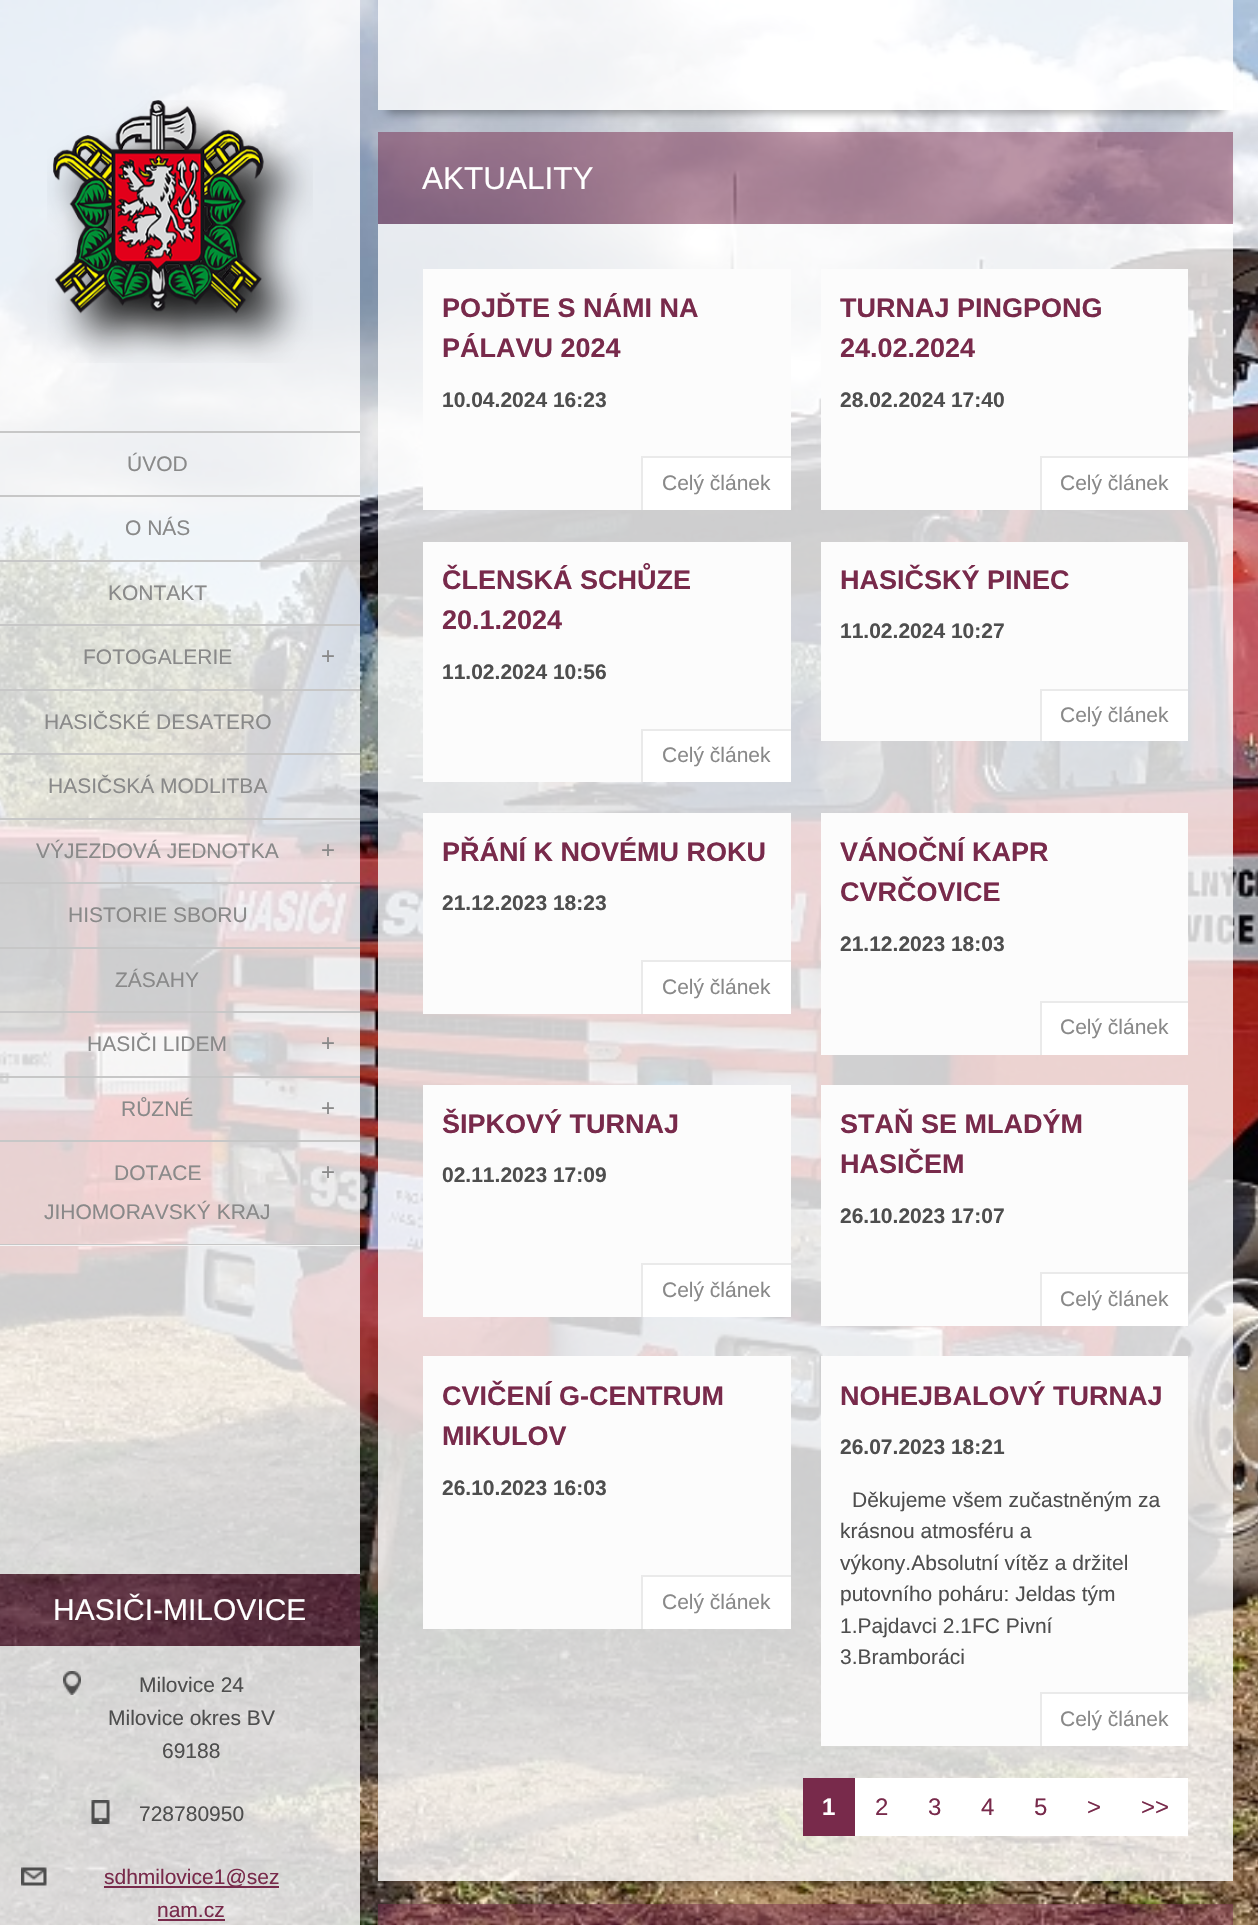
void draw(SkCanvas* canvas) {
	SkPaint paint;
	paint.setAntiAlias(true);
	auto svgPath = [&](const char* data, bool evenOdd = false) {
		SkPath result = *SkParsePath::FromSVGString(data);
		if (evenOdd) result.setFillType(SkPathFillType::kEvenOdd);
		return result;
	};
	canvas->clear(0xffffffff);
	canvas->drawImageRect(SkImages::DeferredFromEncodedData(SkData::MakeFromFileName("img1.png")), SkRect::MakeXYWH(0, 0, 1258, 1925), SkSamplingOptions());
	paint.setColor(0xccffffff);
	canvas->drawRect(SkRect::MakeXYWH(0, 0, 360, 393), paint);
	canvas->drawImageRect(SkImages::DeferredFromEncodedData(SkData::MakeFromFileName("img2.png")), SkRect::MakeXYWH(47, 100, 266, 263), SkSamplingOptions());
	canvas->drawRect(SkRect::MakeXYWH(0, 393, 360, 38), paint);
	canvas->drawRect(SkRect::MakeXYWH(0, 433, 360, 811), paint);
	paint.setColor(0xffc7c7c7);
	canvas->drawRect(SkRect::MakeXYWH(0, 431, 360, 2), paint);
	canvas->drawRect(SkRect::MakeXYWH(0, 495, 360, 2), paint);
	SkFont f1(fontMgr->matchFamilyStyle("Liberation Sans", SkFontStyle::Normal()), 21);
	f1.setSubpixel(true);
	paint.setColor(0xff898989);
	canvas->drawString("ÚVOD", 127, 471, f1, paint);
	paint.setColor(0xffc7c7c7);
	canvas->drawRect(SkRect::MakeXYWH(0, 560, 360, 2), paint);
	paint.setColor(0xff898989);
	canvas->drawString("O NÁS", 125, 535, f1, paint);
	paint.setColor(0xffc7c7c7);
	canvas->drawRect(SkRect::MakeXYWH(0, 624, 360, 2), paint);
	paint.setColor(0xff898989);
	canvas->drawString("KONTAKT", 108, 600, f1, paint);
	paint.setColor(0xffc7c7c7);
	canvas->drawRect(SkRect::MakeXYWH(0, 689, 360, 2), paint);
	paint.setColor(0xff898989);
	canvas->drawString("FOTOGALERIE", 83, 664, f1, paint);
	SkFont f2(fontMgr->matchFamilyStyle("Liberation Sans", SkFontStyle::Normal()), 24);
	f2.setSubpixel(true);
	canvas->drawString("+", 321, 664, f2, paint);
	paint.setColor(0xffc7c7c7);
	canvas->drawRect(SkRect::MakeXYWH(0, 753, 360, 2), paint);
	paint.setColor(0xff898989);
	canvas->drawString("HASIČSKÉ DESATERO", 44, 729, f1, paint);
	paint.setColor(0xffc7c7c7);
	canvas->drawRect(SkRect::MakeXYWH(0, 818, 360, 2), paint);
	paint.setColor(0xff898989);
	canvas->drawString("HASIČSKÁ MODLITBA", 48, 793, f1, paint);
	paint.setColor(0xffc7c7c7);
	canvas->drawRect(SkRect::MakeXYWH(0, 882, 360, 2), paint);
	paint.setColor(0xff898989);
	canvas->drawString("VÝJEZDOVÁ JEDNOTKA", 36, 858, f1, paint);
	canvas->drawString("+", 321, 858, f2, paint);
	paint.setColor(0xffc7c7c7);
	canvas->drawRect(SkRect::MakeXYWH(0, 947, 360, 2), paint);
	paint.setColor(0xff898989);
	canvas->drawString("HISTORIE SBORU", 68, 922, f1, paint);
	paint.setColor(0xffc7c7c7);
	canvas->drawRect(SkRect::MakeXYWH(0, 1011, 360, 2), paint);
	paint.setColor(0xff898989);
	canvas->drawString("ZÁSAHY", 115, 987, f1, paint);
	paint.setColor(0xffc7c7c7);
	canvas->drawRect(SkRect::MakeXYWH(0, 1076, 360, 2), paint);
	paint.setColor(0xff898989);
	canvas->drawString("HASIČI LIDEM", 87, 1051, f1, paint);
	canvas->drawString("+", 321, 1051, f2, paint);
	paint.setColor(0xffc7c7c7);
	canvas->drawRect(SkRect::MakeXYWH(0, 1140, 360, 2), paint);
	paint.setColor(0xff898989);
	canvas->drawString("RŮZNÉ", 121, 1116, f1, paint);
	canvas->drawString("+", 321, 1116, f2, paint);
	paint.setColor(0xffc7c7c7);
	canvas->drawRect(SkRect::MakeXYWH(0, 1244, 360, 2), paint);
	paint.setColor(0xff898989);
	canvas->drawString("DOTACE", 114, 1180, f1, paint);
	canvas->drawString("JIHOMORAVSKÝ KRAJ", 44, 1219, f1, paint);
	canvas->drawString("+", 321, 1180, f2, paint);
	paint.setColor(0xccffffff);
	canvas->drawRect(SkRect::MakeXYWH(0, 1245, 360, 329), paint);
	paint.setColor(0x80782a4b);
	canvas->drawRect(SkRect::MakeXYWH(0, 1574, 360, 72), paint);
	SkFont f3(fontMgr->matchFamilyStyle("Liberation Sans", SkFontStyle::Normal()), 30);
	f3.setSubpixel(true);
	paint.setColor(0xffffffff);
	canvas->drawString("HASIČI-MILOVICE", 53, 1620, f3, paint);
	paint.setColor(0xccffffff);
	canvas->drawRect(SkRect::MakeXYWH(0, 1646, 360, 279), paint);
	canvas->drawImageRect(SkImages::DeferredFromEncodedData(SkData::MakeFromFileName("img3.png")), SkRect::MakeXYWH(63, 1671, 18, 24), SkSamplingOptions());
	paint.setColor(0xff4e4e4e);
	canvas->drawString("Milovice 24", 139, 1692, f1, paint);
	canvas->drawString("Milovice okres BV", 108, 1725, f1, paint);
	canvas->drawString("69188", 162, 1758, f1, paint);
	canvas->drawImageRect(SkImages::DeferredFromEncodedData(SkData::MakeFromFileName("img4.png")), SkRect::MakeXYWH(91, 1800, 19, 24), SkSamplingOptions());
	canvas->drawString("728780950", 139, 1821, f1, paint);
	canvas->drawImageRect(SkImages::DeferredFromEncodedData(SkData::MakeFromFileName("img5.png")), SkRect::MakeXYWH(21, 1867, 26, 19), SkSamplingOptions());
	paint.setColor(0xff782a4b);
	canvas->drawRect(SkRect::MakeXYWH(104, 1886, 175, 2), paint);
	canvas->drawString("sdhmilovice1@sez", 104, 1884, f1, paint);
	canvas->drawString("nam.cz", 157, 1917, f1, paint);
	canvas->drawRect(SkRect::MakeXYWH(158, 1919, 67, 2), paint);
	canvas->save();
	canvas->clipPath(svgPath("M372 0H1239V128H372ZM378-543H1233V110H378Z", true), true);
	paint.setColor(0x59000000);
	paint.setMaskFilter(SkMaskFilter::MakeBlur(kNormal_SkBlurStyle, 4.5));
	canvas->drawRect(SkRect::MakeXYWH(387, -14, 837, 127), paint);
	paint.setMaskFilter(nullptr);
	canvas->restore();
	paint.setColor(0xccffffff);
	canvas->drawRect(SkRect::MakeXYWH(378, 0, 855, 65), paint);
	canvas->drawRect(SkRect::MakeXYWH(378, 65, 855, 45), paint);
	canvas->save();
	canvas->clipRect(SkRect::MakeXYWH(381, 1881, 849, 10));
	paint.setColor(0x59000000);
	paint.setMaskFilter(SkMaskFilter::MakeBlur(kNormal_SkBlurStyle, 4.5));
	canvas->drawRect(SkRect::MakeXYWH(387, 153, 837, 1731), paint);
	paint.setMaskFilter(nullptr);
	canvas->restore();
	paint.setColor(0x80782a4b);
	canvas->drawRect(SkRect::MakeXYWH(378, 132, 855, 92), paint);
	SkFont f4(fontMgr->matchFamilyStyle("Liberation Sans", SkFontStyle::Normal()), 31.5);
	f4.setSubpixel(true);
	paint.setColor(0xffffffff);
	canvas->drawString("AKTUALITY", 422, 189, f4, paint);
	paint.setColor(0xccffffff);
	canvas->drawRect(SkRect::MakeXYWH(378, 224, 855, 1554), paint);
	paint.setColor(0xfffcfcfc);
	canvas->drawRect(SkRect::MakeXYWH(423, 269, 368, 241), paint);
	SkFont f5(fontMgr->matchFamilyStyle("Liberation Sans", SkFontStyle::Bold()), 27);
	f5.setSubpixel(true);
	paint.setColor(0xff782a4b);
	canvas->drawString("POJĎTE S NÁMI NA", 442, 317, f5, paint);
	canvas->drawString("PÁLAVU 2024", 442, 357, f5, paint);
	SkFont f6(fontMgr->matchFamilyStyle("Liberation Sans", SkFontStyle::Bold()), 21);
	f6.setSubpixel(true);
	paint.setColor(0xff4e4e4e);
	canvas->drawString("10.04.2024 16:23", 442, 407, f6, paint);
	paint.setColor(0xffffffff);
	canvas->drawRect(SkRect::MakeXYWH(643, 458, 148, 52), paint);
	paint.setColor(0xffeaeaea);
	canvas->drawRect(SkRect::MakeXYWH(641, 456, 150, 2), paint);
	canvas->drawRect(SkRect::MakeXYWH(641, 456, 2, 54), paint);
	paint.setColor(0xff898989);
	canvas->drawString("Celý článek", 662, 490, f1, paint);
	paint.setColor(0xfffcfcfc);
	canvas->drawRect(SkRect::MakeXYWH(821, 269, 367, 241), paint);
	paint.setColor(0xff782a4b);
	canvas->drawString("TURNAJ PINGPONG", 840, 317, f5, paint);
	canvas->drawString("24.02.2024", 840, 357, f5, paint);
	paint.setColor(0xff4e4e4e);
	canvas->drawString("28.02.2024 17:40", 840, 407, f6, paint);
	paint.setColor(0xffffffff);
	canvas->drawRect(SkRect::MakeXYWH(1042, 458, 146, 52), paint);
	paint.setColor(0xffeaeaea);
	canvas->drawRect(SkRect::MakeXYWH(1040, 456, 148, 2), paint);
	canvas->drawRect(SkRect::MakeXYWH(1040, 456, 2, 54), paint);
	paint.setColor(0xff898989);
	canvas->drawString("Celý článek", 1060, 490, f1, paint);
	paint.setColor(0xfffcfcfc);
	canvas->drawRect(SkRect::MakeXYWH(423, 542, 368, 240), paint);
	paint.setColor(0xff782a4b);
	canvas->drawString("ČLENSKÁ SCHŮZE", 442, 589, f5, paint);
	canvas->drawString("20.1.2024", 442, 629, f5, paint);
	paint.setColor(0xff4e4e4e);
	canvas->drawString("11.02.2024 10:56", 442, 679, f6, paint);
	paint.setColor(0xffffffff);
	canvas->drawRect(SkRect::MakeXYWH(643, 731, 148, 51), paint);
	paint.setColor(0xffeaeaea);
	canvas->drawRect(SkRect::MakeXYWH(641, 729, 150, 2), paint);
	canvas->drawRect(SkRect::MakeXYWH(641, 729, 2, 53), paint);
	paint.setColor(0xff898989);
	canvas->drawString("Celý článek", 662, 762, f1, paint);
	paint.setColor(0xfffcfcfc);
	canvas->drawRect(SkRect::MakeXYWH(821, 542, 367, 199), paint);
	paint.setColor(0xff782a4b);
	canvas->drawString("HASIČSKÝ PINEC", 840, 589, f5, paint);
	paint.setColor(0xff4e4e4e);
	canvas->drawString("11.02.2024 10:27", 840, 638, f6, paint);
	paint.setColor(0xffffffff);
	canvas->drawRect(SkRect::MakeXYWH(1042, 691, 146, 50), paint);
	paint.setColor(0xffeaeaea);
	canvas->drawRect(SkRect::MakeXYWH(1040, 689, 148, 2), paint);
	canvas->drawRect(SkRect::MakeXYWH(1040, 689, 2, 52), paint);
	paint.setColor(0xff898989);
	canvas->drawString("Celý článek", 1060, 722, f1, paint);
	paint.setColor(0xfffcfcfc);
	canvas->drawRect(SkRect::MakeXYWH(423, 813, 368, 201), paint);
	paint.setColor(0xff782a4b);
	canvas->drawString("PŘÁNÍ K NOVÉMU ROKU", 442, 861, f5, paint);
	paint.setColor(0xff4e4e4e);
	canvas->drawString("21.12.2023 18:23", 442, 910, f6, paint);
	paint.setColor(0xffffffff);
	canvas->drawRect(SkRect::MakeXYWH(643, 962, 148, 52), paint);
	paint.setColor(0xffeaeaea);
	canvas->drawRect(SkRect::MakeXYWH(641, 960, 150, 2), paint);
	canvas->drawRect(SkRect::MakeXYWH(641, 960, 2, 54), paint);
	paint.setColor(0xff898989);
	canvas->drawString("Celý článek", 662, 994, f1, paint);
	paint.setColor(0xfffcfcfc);
	canvas->drawRect(SkRect::MakeXYWH(821, 813, 367, 242), paint);
	paint.setColor(0xff782a4b);
	canvas->drawString("VÁNOČNÍ KAPR", 840, 861, f5, paint);
	canvas->drawString("CVRČOVICE", 840, 901, f5, paint);
	paint.setColor(0xff4e4e4e);
	canvas->drawString("21.12.2023 18:03", 840, 951, f6, paint);
	paint.setColor(0xffffffff);
	canvas->drawRect(SkRect::MakeXYWH(1042, 1003, 146, 52), paint);
	paint.setColor(0xffeaeaea);
	canvas->drawRect(SkRect::MakeXYWH(1040, 1001, 148, 2), paint);
	canvas->drawRect(SkRect::MakeXYWH(1040, 1001, 2, 54), paint);
	paint.setColor(0xff898989);
	canvas->drawString("Celý článek", 1060, 1034, f1, paint);
	paint.setColor(0xfffcfcfc);
	canvas->drawRect(SkRect::MakeXYWH(423, 1085, 368, 232), paint);
	paint.setColor(0xff782a4b);
	canvas->drawString("ŠIPKOVÝ TURNAJ", 442, 1133, f5, paint);
	paint.setColor(0xff4e4e4e);
	canvas->drawString("02.11.2023 17:09", 442, 1182, f6, paint);
	paint.setColor(0xffffffff);
	canvas->drawRect(SkRect::MakeXYWH(643, 1265, 148, 52), paint);
	paint.setColor(0xffeaeaea);
	canvas->drawRect(SkRect::MakeXYWH(641, 1263, 150, 2), paint);
	canvas->drawRect(SkRect::MakeXYWH(641, 1263, 2, 54), paint);
	paint.setColor(0xff898989);
	canvas->drawString("Celý článek", 662, 1297, f1, paint);
	paint.setColor(0xfffcfcfc);
	canvas->drawRect(SkRect::MakeXYWH(821, 1085, 367, 241), paint);
	paint.setColor(0xff782a4b);
	canvas->drawString("STAŇ SE MLADÝM", 840, 1133, f5, paint);
	canvas->drawString("HASIČEM", 840, 1173, f5, paint);
	paint.setColor(0xff4e4e4e);
	canvas->drawString("26.10.2023 17:07", 840, 1223, f6, paint);
	paint.setColor(0xffffffff);
	canvas->drawRect(SkRect::MakeXYWH(1042, 1274, 146, 52), paint);
	paint.setColor(0xffeaeaea);
	canvas->drawRect(SkRect::MakeXYWH(1040, 1272, 148, 2), paint);
	canvas->drawRect(SkRect::MakeXYWH(1040, 1272, 2, 54), paint);
	paint.setColor(0xff898989);
	canvas->drawString("Celý článek", 1060, 1306, f1, paint);
	paint.setColor(0xfffcfcfc);
	canvas->drawRect(SkRect::MakeXYWH(423, 1356, 368, 273), paint);
	paint.setColor(0xff782a4b);
	canvas->drawString("CVIČENÍ G-CENTRUM", 442, 1405, f5, paint);
	canvas->drawString("MIKULOV", 442, 1445, f5, paint);
	paint.setColor(0xff4e4e4e);
	canvas->drawString("26.10.2023 16:03", 442, 1495, f6, paint);
	paint.setColor(0xffffffff);
	canvas->drawRect(SkRect::MakeXYWH(643, 1577, 148, 52), paint);
	paint.setColor(0xffeaeaea);
	canvas->drawRect(SkRect::MakeXYWH(641, 1575, 150, 2), paint);
	canvas->drawRect(SkRect::MakeXYWH(641, 1575, 2, 54), paint);
	paint.setColor(0xff898989);
	canvas->drawString("Celý článek", 662, 1609, f1, paint);
	paint.setColor(0xfffcfcfc);
	canvas->drawRect(SkRect::MakeXYWH(821, 1356, 367, 390), paint);
	paint.setColor(0xff782a4b);
	canvas->drawString("NOHEJBALOVÝ TURNAJ", 840, 1405, f5, paint);
	paint.setColor(0xff4e4e4e);
	canvas->drawString("26.07.2023 18:21", 840, 1454, f6, paint);
	canvas->drawString("Děkujeme všem zučastněným za", 852, 1507, f1, paint);
	canvas->drawString("krásnou atmosféru a", 840, 1538, f1, paint);
	canvas->drawString("výkony.Absolutní vítěz a držitel", 840, 1570, f1, paint);
	canvas->drawString("putovního poháru: Jeldas tým", 840, 1601, f1, paint);
	canvas->drawString("1.Pajdavci 2.1FC Pivní", 840, 1633, f1, paint);
	canvas->drawString("3.Bramboráci", 840, 1664, f1, paint);
	paint.setColor(0xffffffff);
	canvas->drawRect(SkRect::MakeXYWH(1042, 1694, 146, 52), paint);
	paint.setColor(0xffeaeaea);
	canvas->drawRect(SkRect::MakeXYWH(1040, 1692, 148, 2), paint);
	canvas->drawRect(SkRect::MakeXYWH(1040, 1692, 2, 54), paint);
	paint.setColor(0xff898989);
	canvas->drawString("Celý článek", 1060, 1726, f1, paint);
	paint.setColor(0xccffffff);
	canvas->drawRect(SkRect::MakeXYWH(378, 1778, 855, 103), paint);
	paint.setColor(0xffffffff);
	canvas->drawRect(SkRect::MakeXYWH(855, 1778, 333, 58), paint);
	paint.setColor(0xff782a4b);
	canvas->drawRect(SkRect::MakeXYWH(803, 1778, 52, 58), paint);
	SkFont f7(fontMgr->matchFamilyStyle("Liberation Sans", SkFontStyle::Bold()), 24);
	f7.setSubpixel(true);
	paint.setColor(0xffffffff);
	canvas->drawString("1", 822, 1815, f7, paint);
	paint.setColor(0xff782a4b);
	canvas->drawString("2", 875, 1815, f2, paint);
	canvas->drawString("3", 928, 1815, f2, paint);
	canvas->drawString("4", 981, 1815, f2, paint);
	canvas->drawString("5", 1034, 1815, f2, paint);
	canvas->drawString(">", 1087, 1815, f2, paint);
	canvas->drawString(">>", 1141, 1815, f2, paint);
	paint.setColor(0x80782a4b);
	canvas->drawRect(SkRect::MakeXYWH(378, 1904, 855, 21), paint);
}
